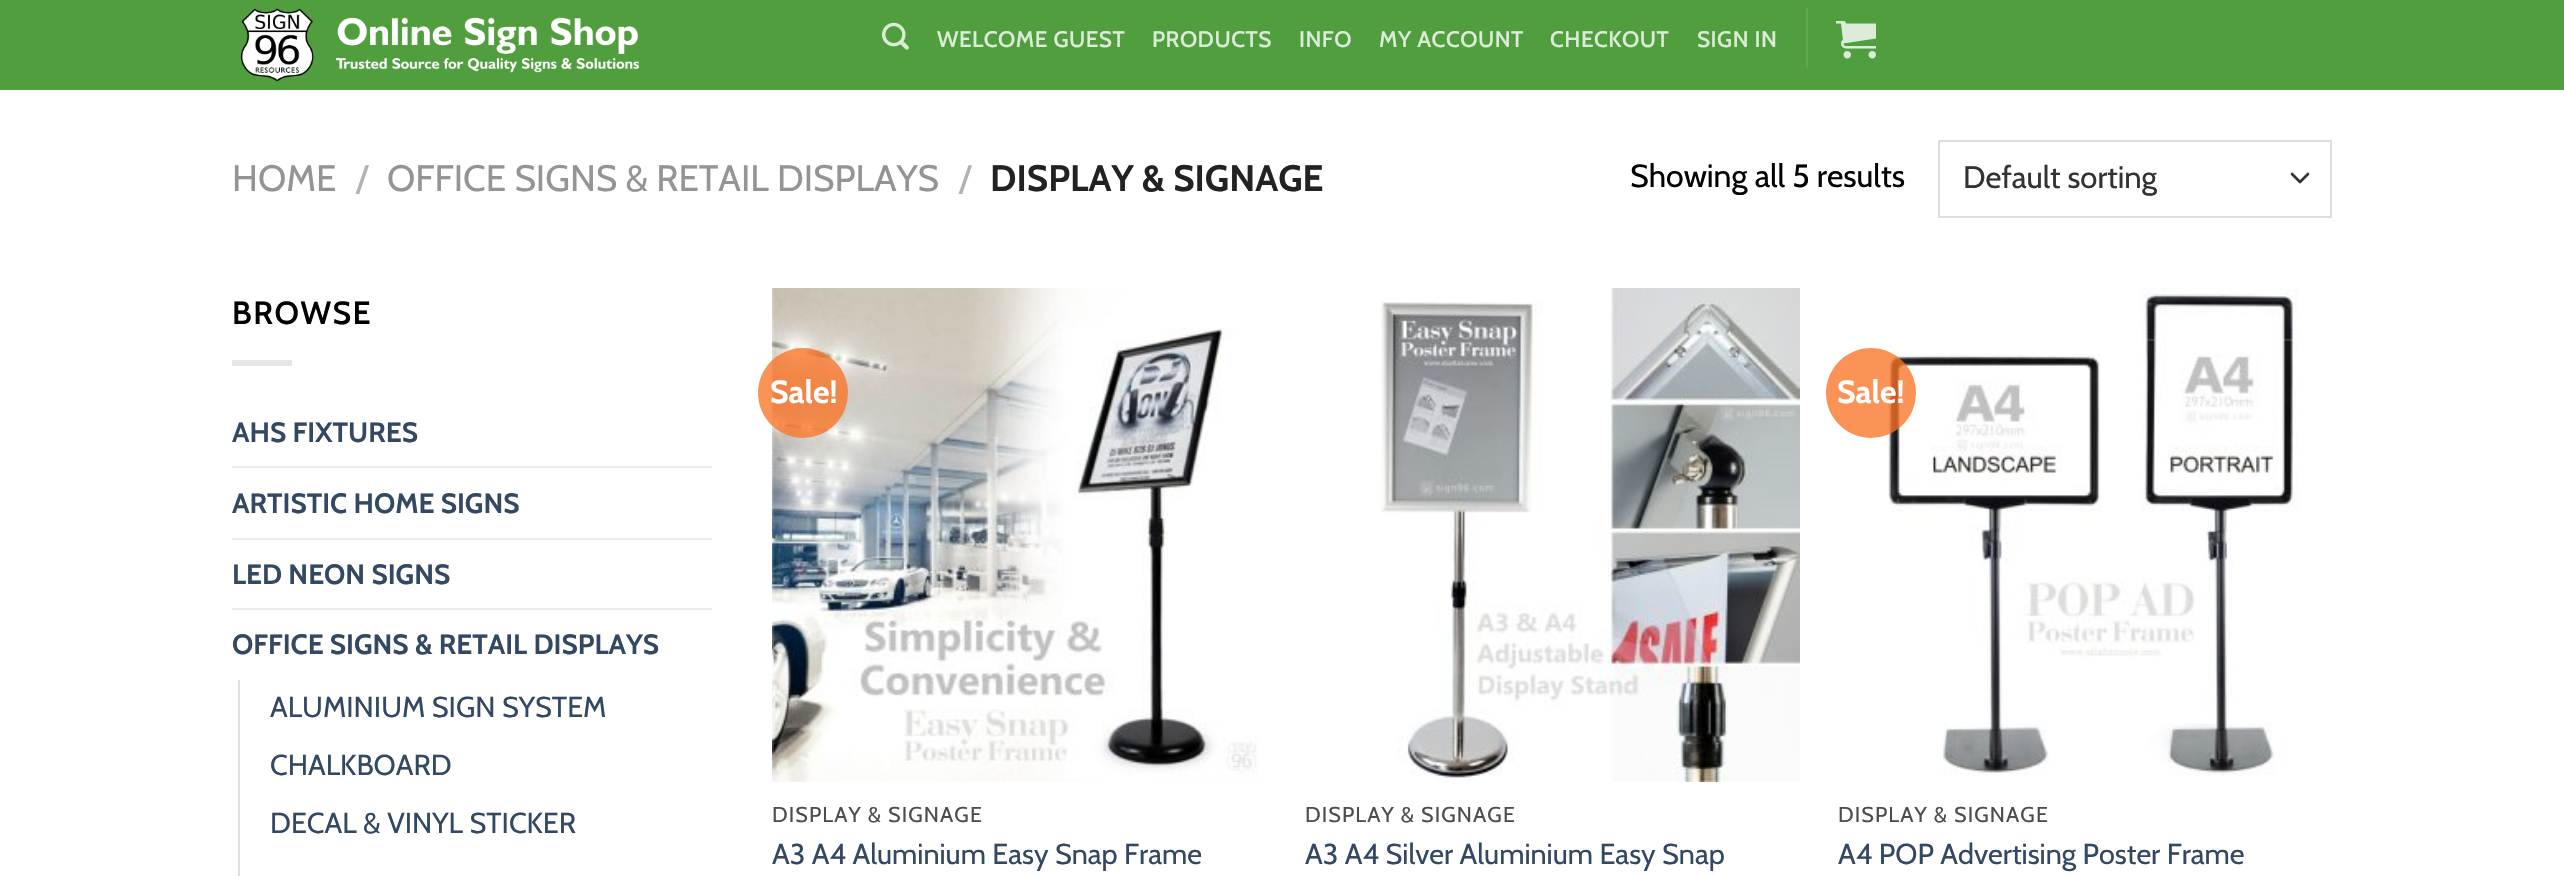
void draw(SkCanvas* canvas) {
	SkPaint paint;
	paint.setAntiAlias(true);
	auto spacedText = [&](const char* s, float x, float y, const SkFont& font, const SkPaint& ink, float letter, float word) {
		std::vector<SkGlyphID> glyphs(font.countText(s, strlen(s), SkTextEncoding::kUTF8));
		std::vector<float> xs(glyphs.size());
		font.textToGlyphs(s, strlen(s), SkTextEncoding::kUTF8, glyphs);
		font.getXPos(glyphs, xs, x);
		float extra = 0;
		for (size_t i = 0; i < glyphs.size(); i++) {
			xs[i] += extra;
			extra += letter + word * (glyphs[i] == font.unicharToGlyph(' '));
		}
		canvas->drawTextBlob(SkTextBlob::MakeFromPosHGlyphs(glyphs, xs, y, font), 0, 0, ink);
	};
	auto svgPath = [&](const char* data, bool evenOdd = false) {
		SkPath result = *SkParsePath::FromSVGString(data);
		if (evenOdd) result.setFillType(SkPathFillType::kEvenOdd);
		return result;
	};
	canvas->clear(0xffffffff);
	paint.setColor(0xff509e3d);
	canvas->drawRect(SkRect::MakeXYWH(0, 0, 2564, 90), paint);
	canvas->drawImageRect(SkImages::DeferredFromEncodedData(SkData::MakeFromFileName("img1.png")), SkRect::MakeXYWH(240, 8, 399, 74), SkSamplingOptions());
	canvas->drawImageRect(SkImages::DeferredFromEncodedData(SkData::MakeFromFileName("img2.png")), SkRect::MakeXYWH(882, 22, 27, 28), SkSamplingOptions());
	SkFont f1(fontMgr->matchFamilyStyle("Cabin", SkFontStyle(500, SkFontStyle::kNormal_Width, SkFontStyle::kUpright_Slant)), 22.5);
	f1.setSubpixel(true);
	paint.setColor(0xffdcecd8);
	spacedText("WELCOME GUEST", 937, 47, f1, paint, 0.5, 0);
	spacedText("PRODUCTS", 1152, 47, f1, paint, 0.5, 0);
	spacedText("INFO", 1299, 47, f1, paint, 0.5, 0);
	spacedText("MY ACCOUNT", 1379, 47, f1, paint, 0.5, 0);
	spacedText("CHECKOUT", 1550, 47, f1, paint, 0.5, 0);
	spacedText("SIGN IN", 1697, 47, f1, paint, 0.5, 0);
	paint.setColor(0xff62a850);
	canvas->drawRect(SkRect::MakeXYWH(1806, 8, 2, 60), paint);
	canvas->drawImageRect(SkImages::DeferredFromEncodedData(SkData::MakeFromFileName("img3.png")), SkRect::MakeXYWH(1836, 21, 40, 38), SkSamplingOptions());
	SkFont f2(fontMgr->matchFamilyStyle("Cabin", SkFontStyle::Normal()), 36.75);
	f2.setSubpixel(true);
	paint.setColor(0xff949494);
	canvas->drawString("HOME", 232, 191, f2, paint);
	paint.setColor(0xffb2b2b2);
	canvas->drawString("/", 356, 191, f2, paint);
	paint.setColor(0xff949494);
	canvas->drawString("OFFICE SIGNS & RETAIL DISPLAYS", 387, 191, f2, paint);
	paint.setColor(0xffb2b2b2);
	canvas->drawString("/", 959, 191, f2, paint);
	SkFont f3(fontMgr->matchFamilyStyle("Cabin", SkFontStyle::Bold()), 36.75);
	f3.setSubpixel(true);
	paint.setColor(0xff222222);
	canvas->drawString("DISPLAY & SIGNAGE", 990, 191, f3, paint);
	SkFont f4(fontMgr->matchFamilyStyle("Cabin", SkFontStyle::Normal()), 32);
	f4.setSubpixel(true);
	paint.setColor(0xff000000);
	canvas->drawString("Showing all 5 results", 1630, 187, f4, paint);
	paint.setStroke(true);
	paint.setStrokeWidth(2.7);
	paint.setStrokeCap(SkPaint::kRound_Cap);
	paint.setStrokeJoin(SkPaint::kRound_Join);
	paint.setColor(0xff333333);
	canvas->drawPath(svgPath("M2292 174L2300 182L2308 174"), paint);
	paint.setStrokeWidth(2);
	paint.setStrokeCap(SkPaint::kButt_Cap);
	paint.setStrokeJoin(SkPaint::kMiter_Join);
	paint.setColor(0xffdddddd);
	canvas->drawRect(SkRect::MakeXYWH(1939, 141, 392, 76), paint);
	SkFont f5(fontMgr->matchFamilyStyle("Cabin", SkFontStyle::Normal()), 31);
	f5.setSubpixel(true);
	paint.setStroke(false);
	paint.setColor(0xff333333);
	canvas->drawString("Default sorting", 1963, 188, f5, paint);
	SkFont f6(fontMgr->matchFamilyStyle("Cabin", SkFontStyle(600, SkFontStyle::kNormal_Width, SkFontStyle::kUpright_Slant)), 32);
	f6.setSubpixel(true);
	paint.setColor(0xff000000);
	spacedText("BROWSE", 232, 324, f6, paint, 1.5, 0);
	paint.setColor(0xffe6e6e6);
	canvas->drawRect(SkRect::MakeXYWH(232, 360, 60, 6), paint);
	SkFont f7(fontMgr->matchFamilyStyle("Cabin", SkFontStyle::Bold()), 28);
	f7.setSubpixel(true);
	paint.setColor(0xff334862);
	canvas->drawString("AHS FIXTURES", 232, 442, f7, paint);
	paint.setColor(0xffececec);
	canvas->drawRect(SkRect::MakeXYWH(232, 466, 480, 2), paint);
	paint.setColor(0xff334862);
	canvas->drawString("ARTISTIC HOME SIGNS", 232, 513, f7, paint);
	paint.setColor(0xffececec);
	canvas->drawRect(SkRect::MakeXYWH(232, 538, 480, 2), paint);
	paint.setColor(0xff334862);
	canvas->drawString("LED NEON SIGNS", 232, 584, f7, paint);
	paint.setColor(0xffececec);
	canvas->drawRect(SkRect::MakeXYWH(232, 608, 480, 2), paint);
	paint.setColor(0xff334862);
	canvas->drawString("OFFICE SIGNS & RETAIL DISPLAYS", 232, 654, f7, paint);
	paint.setColor(0xffdddddd);
	canvas->drawRect(SkRect::MakeXYWH(238, 680, 2, 196), paint);
	SkFont f8(fontMgr->matchFamilyStyle("Cabin", SkFontStyle::Normal()), 28.75);
	f8.setSubpixel(true);
	paint.setColor(0xff334862);
	canvas->drawString("ALUMINIUM SIGN SYSTEM", 270, 717, f8, paint);
	canvas->drawString("CHALKBOARD", 270, 775, f8, paint);
	canvas->drawString("DECAL & VINYL STICKER", 270, 833, f8, paint);
	canvas->drawImageRect(SkImages::DeferredFromEncodedData(SkData::MakeFromFileName("img4.png")), SkRect::MakeXYWH(772, 288, 487, 494), SkSamplingOptions());
	paint.setColor(0xc4fa7223);
	canvas->drawCircle(803, 393, 45, paint);
	SkFont f9(fontMgr->matchFamilyStyle("Cabin", SkFontStyle::Bold()), 32);
	f9.setSubpixel(true);
	paint.setColor(0xffffffff);
	canvas->drawString("Sale!", 770, 403, f9, paint);
	SkFont f10(fontMgr->matchFamilyStyle("Cabin", SkFontStyle::Normal()), 21.5);
	f10.setSubpixel(true);
	paint.setColor(0xff4d4d4d);
	spacedText("DISPLAY & SIGNAGE", 772, 822, f10, paint, 1.1, 0);
	paint.setColor(0xff334862);
	canvas->drawString("A3 A4 Aluminium Easy Snap Frame", 772, 864, f8, paint);
	canvas->drawImageRect(SkImages::DeferredFromEncodedData(SkData::MakeFromFileName("img5.png")), SkRect::MakeXYWH(1380, 288, 420, 494), SkSamplingOptions());
	paint.setColor(0xff4d4d4d);
	spacedText("DISPLAY & SIGNAGE", 1305, 822, f10, paint, 1.1, 0);
	paint.setColor(0xff334862);
	canvas->drawString("A3 A4 Silver Aluminium Easy Snap", 1305, 864, f8, paint);
	canvas->drawImageRect(SkImages::DeferredFromEncodedData(SkData::MakeFromFileName("img6.png")), SkRect::MakeXYWH(1888, 288, 411, 488), SkSamplingOptions());
	paint.setColor(0xc4fa7223);
	canvas->drawCircle(1871, 393, 45, paint);
	paint.setColor(0xffffffff);
	canvas->drawString("Sale!", 1837, 403, f9, paint);
	paint.setColor(0xff4d4d4d);
	spacedText("DISPLAY & SIGNAGE", 1838, 822, f10, paint, 1.1, 0);
	paint.setColor(0xff334862);
	canvas->drawString("A4 POP Advertising Poster Frame", 1838, 864, f8, paint);
}
